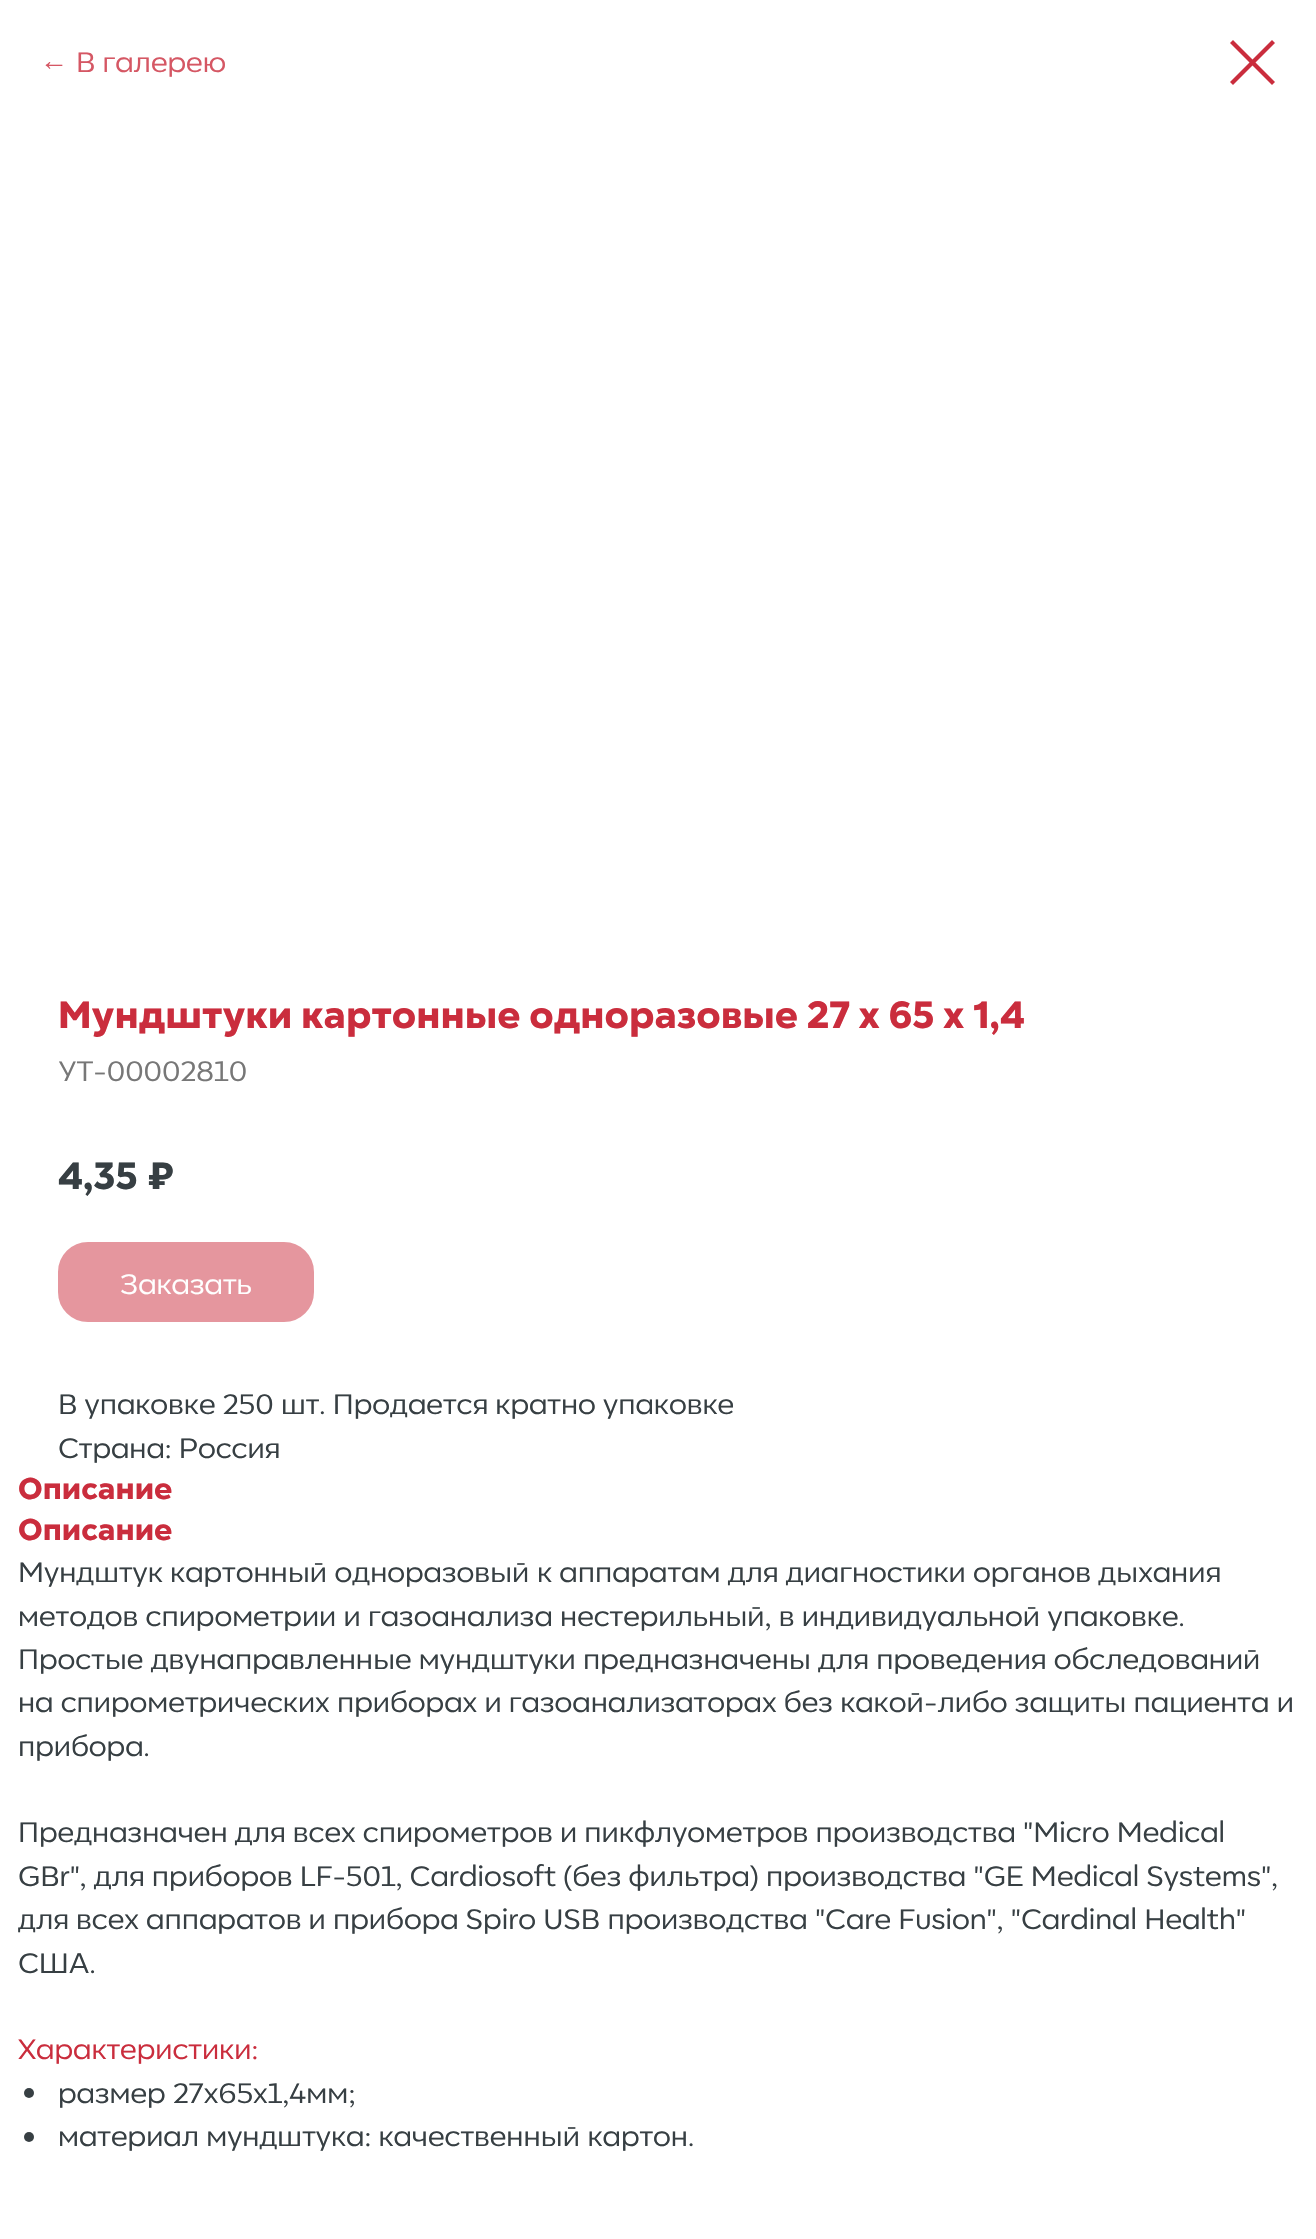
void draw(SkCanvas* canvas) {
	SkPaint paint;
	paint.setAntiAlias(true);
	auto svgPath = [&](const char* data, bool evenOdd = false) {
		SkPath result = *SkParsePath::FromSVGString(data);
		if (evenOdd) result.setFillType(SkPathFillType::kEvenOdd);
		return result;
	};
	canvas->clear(0xffffffff);
	SkFont f1(fontMgr->matchFamilyStyle("Liberation Sans", SkFontStyle::Normal()), 28);
	f1.setSubpixel(true);
	paint.setColor(0xffd55764);
	canvas->drawString("←", 40, 70, f1, paint);
	SkFont f2(fontMgr->matchFamilyStyle("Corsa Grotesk", SkFontStyle::Normal()), 28);
	f2.setSubpixel(true);
	canvas->drawString("В галерею", 76, 72, f2, paint);
	paint.setColor(0xffca2d3d);
	canvas->drawPath(svgPath("M1230 43L1233 40L1275 82L1272 85Z", true), paint);
	canvas->drawPath(svgPath("M1272 40L1275 43L1233 85L1230 82Z", true), paint);
	SkFont f3(fontMgr->matchFamilyStyle("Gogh", SkFontStyle(800, SkFontStyle::kNormal_Width, SkFontStyle::kUpright_Slant)), 38);
	f3.setSubpixel(true);
	canvas->drawString("Мундштуки картонные одноразовые 27 х 65 х 1,4", 58, 1028, f3, paint);
	paint.setColor(0xff777777);
	canvas->drawString("УТ-00002810", 58, 1081, f2, paint);
	paint.setColor(0xff373f43);
	canvas->drawString("4,35", 58, 1189, f3, paint);
	canvas->drawString("₽", 148, 1189, f3, paint);
	paint.setColor(0xffe5969e);
	canvas->drawRoundRect(SkRect::MakeXYWH(59, 1243, 254, 78), 29, 29, paint);
	paint.setStroke(true);
	paint.setStrokeWidth(2);
	canvas->drawRoundRect(SkRect::MakeXYWH(59, 1243, 254, 78), 29, 29, paint);
	paint.setStroke(false);
	paint.setColor(0xffffffff);
	canvas->drawString("Заказать", 120, 1294, f2, paint);
	paint.setColor(0xff373f43);
	canvas->drawString("В упаковке 250 шт. Продается кратно упаковке", 58, 1414, f2, paint);
	canvas->drawString("Страна: Россия", 58, 1458, f2, paint);
	SkFont f4(fontMgr->matchFamilyStyle("Gogh", SkFontStyle(800, SkFontStyle::kNormal_Width, SkFontStyle::kUpright_Slant)), 30);
	f4.setSubpixel(true);
	paint.setColor(0xffca2d3d);
	canvas->drawString("Описание", 18, 1499, f4, paint);
	canvas->drawString("Описание", 18, 1540, f4, paint);
	paint.setColor(0xff373f43);
	canvas->drawString("Мундштук картонный одноразовый к аппаратам для диагностики органов дыхания", 18, 1582, f2, paint);
	canvas->drawString("методов спирометрии и газоанализа нестерильный, в индивидуальной упаковке.", 18, 1626, f2, paint);
	canvas->drawString("Простые двунаправленные мундштуки предназначены для проведения обследований", 18, 1669, f2, paint);
	canvas->drawString("на спирометрических приборах и газоанализаторах без какой-либо защиты пациента и", 18, 1712, f2, paint);
	canvas->drawString("прибора.", 18, 1756, f2, paint);
	canvas->drawString("Предназначен для всех спирометров и пикфлуометров производства \"Micro Medical", 18, 1842, f2, paint);
	canvas->drawString("GBr\", для приборов LF-501, Cardiosoft (без фильтра) производства \"GE Medical Systems\",", 18, 1886, f2, paint);
	canvas->drawString("для всех аппаратов и прибора Spiro USB производства \"Care Fusion\", \"Cardinal Health\"", 18, 1929, f2, paint);
	canvas->drawString("США.", 18, 1973, f2, paint);
	paint.setColor(0xffca2d3d);
	canvas->drawString("Характеристики:", 18, 2059, f2, paint);
	paint.setColor(0xff373f43);
	canvas->drawCircle(29, 2093, 5, paint);
	canvas->drawString("размер 27х65х1,4мм;", 58, 2103, f2, paint);
	canvas->drawCircle(29, 2137, 5, paint);
	canvas->drawString("материал мундштука: качественный картон.", 58, 2146, f2, paint);
}
